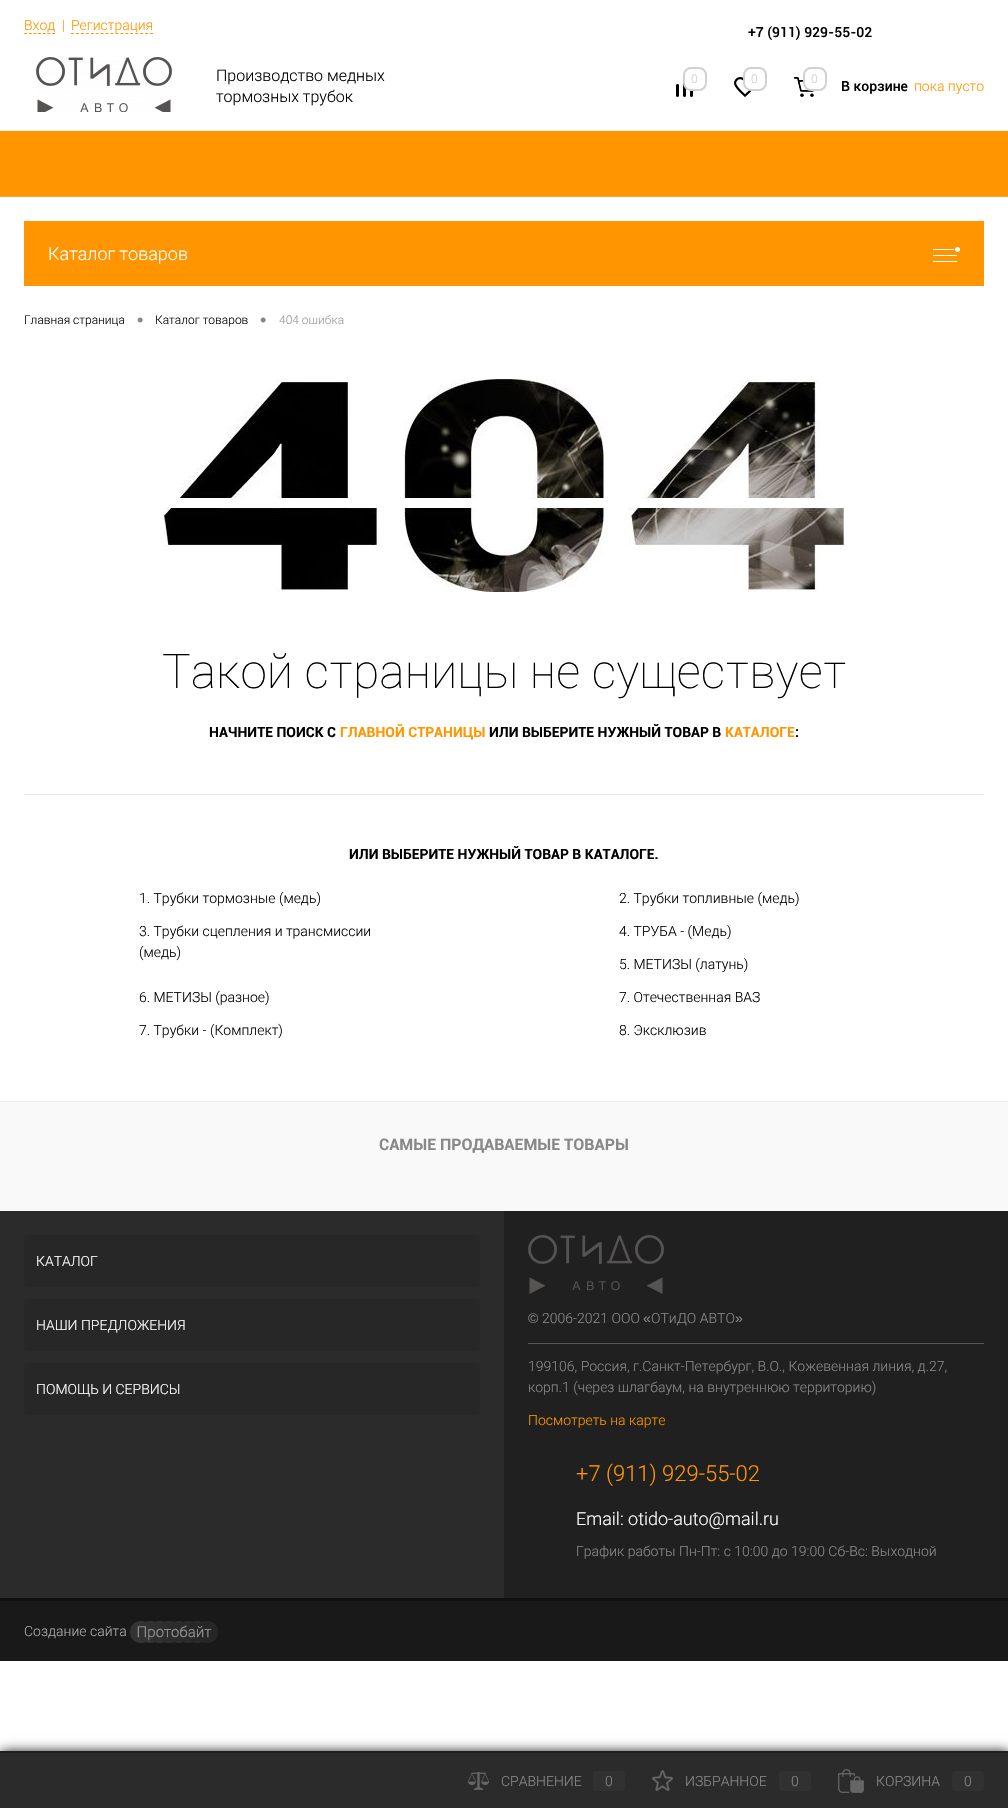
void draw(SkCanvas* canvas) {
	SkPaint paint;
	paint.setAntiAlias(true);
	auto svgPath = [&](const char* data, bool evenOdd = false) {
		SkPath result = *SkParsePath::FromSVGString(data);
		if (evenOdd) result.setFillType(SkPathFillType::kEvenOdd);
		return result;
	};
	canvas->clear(0xffffffff);
	paint.setColor(0xfff3f3f3);
	canvas->drawRect(SkRect::MakeXYWH(0, 130, 1008, 1), paint);
	SkFont f1(fontMgr->matchFamilyStyle("Roboto", SkFontStyle(300, SkFontStyle::kNormal_Width, SkFontStyle::kUpright_Slant)), 14);
	f1.setSubpixel(true);
	paint.setColor(0xffff9601);
	canvas->drawString("Вход", 24, 30, f1, paint);
	paint.setStroke(true);
	paint.setStrokeWidth(1);
	paint.setPathEffect(SkDashPathEffect::Make({{3, 1.67f}}, 0));
	canvas->drawPath(svgPath("M24 33.5H55"), paint);
	paint.setPathEffect(nullptr);
	paint.setStroke(false);
	canvas->drawString("|", 62, 30, f1, paint);
	canvas->drawString("Регистрация", 71, 30, f1, paint);
	paint.setStroke(true);
	paint.setPathEffect(SkDashPathEffect::Make({{3, 1.94f}}, 0));
	canvas->drawPath(svgPath("M71 33.5H153"), paint);
	paint.setPathEffect(nullptr);
	canvas->drawImageRect(SkImages::DeferredFromEncodedData(SkData::MakeFromFileName("img1.png")), SkRect::MakeXYWH(36, 57, 136, 55), SkSamplingOptions());
	SkFont f2(fontMgr->matchFamilyStyle("Roboto", SkFontStyle(300, SkFontStyle::kNormal_Width, SkFontStyle::kUpright_Slant)), 16);
	f2.setSubpixel(true);
	paint.setStroke(false);
	paint.setColor(0xff000000);
	canvas->drawString("Производство медных", 216, 81, f2, paint);
	canvas->drawString("тормозных трубок", 216, 102, f2, paint);
	SkFont f3(fontMgr->matchFamilyStyle("Roboto", SkFontStyle(500, SkFontStyle::kNormal_Width, SkFontStyle::kUpright_Slant)), 14);
	f3.setSubpixel(true);
	canvas->drawString("+7 (911) 929-55-02", 748, 37, f3, paint);
	canvas->drawImageRect(SkImages::DeferredFromEncodedData(SkData::MakeFromFileName("img2.png")), SkRect::MakeXYWH(676, 83, 17, 14), SkSamplingOptions());
	paint.setColor(0xffffffff);
	canvas->drawRoundRect(SkRect::MakeXYWH(684, 68, 22, 22), 7, 7, paint);
	paint.setStroke(true);
	paint.setStrokeWidth(2);
	paint.setColor(0xffd1d1d1);
	canvas->drawRoundRect(SkRect::MakeXYWH(684, 68, 22, 22), 7, 7, paint);
	SkFont f4(fontMgr->matchFamilyStyle("Roboto", SkFontStyle(300, SkFontStyle::kNormal_Width, SkFontStyle::kUpright_Slant)), 12);
	f4.setSubpixel(true);
	paint.setStroke(false);
	canvas->drawString("0", 691, 83, f4, paint);
	canvas->drawImageRect(SkImages::DeferredFromEncodedData(SkData::MakeFromFileName("img3.png")), SkRect::MakeXYWH(734, 77, 18, 20), SkSamplingOptions());
	paint.setColor(0xffffffff);
	canvas->drawRoundRect(SkRect::MakeXYWH(744, 68, 22, 22), 7, 7, paint);
	paint.setStroke(true);
	paint.setColor(0xffd1d1d1);
	canvas->drawRoundRect(SkRect::MakeXYWH(744, 68, 22, 22), 7, 7, paint);
	paint.setStroke(false);
	canvas->drawString("0", 751, 83, f4, paint);
	canvas->drawImageRect(SkImages::DeferredFromEncodedData(SkData::MakeFromFileName("img4.png")), SkRect::MakeXYWH(794, 77, 20, 20), SkSamplingOptions());
	paint.setColor(0xffffffff);
	canvas->drawRoundRect(SkRect::MakeXYWH(804, 68, 22, 22), 7, 7, paint);
	paint.setStroke(true);
	paint.setColor(0xffd1d1d1);
	canvas->drawRoundRect(SkRect::MakeXYWH(804, 68, 22, 22), 7, 7, paint);
	paint.setStroke(false);
	canvas->drawString("0", 811, 83, f4, paint);
	paint.setColor(0xff000000);
	canvas->drawString("В корзине", 841, 91, f3, paint);
	paint.setColor(0xffff9601);
	canvas->drawString("пока пусто", 914, 91, f1, paint);
	canvas->drawRect(SkRect::MakeXYWH(0, 131, 1008, 65), paint);
	paint.setColor(0xffffa627);
	canvas->drawRect(SkRect::MakeXYWH(0, 196, 1008, 1), paint);
	paint.setColor(0xffff9601);
	canvas->drawRect(SkRect::MakeXYWH(24, 221, 960, 65), paint);
	SkFont f5(fontMgr->matchFamilyStyle("Roboto", SkFontStyle(300, SkFontStyle::kNormal_Width, SkFontStyle::kUpright_Slant)), 18);
	f5.setSubpixel(true);
	paint.setColor(0xffffffff);
	canvas->drawString("Каталог товаров", 48, 260, f5, paint);
	canvas->drawImageRect(SkImages::DeferredFromEncodedData(SkData::MakeFromFileName("img5.png")), SkRect::MakeXYWH(933, 247, 27, 15), SkSamplingOptions());
	paint.setColor(0xff000000);
	canvas->drawString("Главная страница", 24, 324, f4, paint);
	SkFont f6(fontMgr->matchFamilyStyle("Liberation Sans", SkFontStyle::Normal()), 18);
	f6.setSubpixel(true);
	paint.setColor(0xff888888);
	canvas->drawString("•", 137, 326, f6, paint);
	paint.setColor(0xff000000);
	canvas->drawString("Каталог товаров", 155, 324, f4, paint);
	paint.setColor(0xff888888);
	canvas->drawString("•", 260, 326, f6, paint);
	paint.setColor(0xff999999);
	canvas->drawString("404 ошибка", 279, 324, f4, paint);
	canvas->drawImageRect(SkImages::DeferredFromEncodedData(SkData::MakeFromFileName("img6.png")), SkRect::MakeXYWH(164, 379, 680, 213), SkSamplingOptions());
	SkFont f7(fontMgr->matchFamilyStyle("Roboto", SkFontStyle(100, SkFontStyle::kNormal_Width, SkFontStyle::kUpright_Slant)), 48);
	f7.setSubpixel(true);
	paint.setColor(0xff000000);
	canvas->drawString("Такой страницы не существует", 162, 688, f7, paint);
	SkFont f8(fontMgr->matchFamilyStyle("Roboto", SkFontStyle::Bold()), 14);
	f8.setSubpixel(true);
	canvas->drawString("НАЧНИТЕ ПОИСК С", 209, 737, f8, paint);
	paint.setColor(0xffff9601);
	canvas->drawString("ГЛАВНОЙ СТРАНИЦЫ", 340, 737, f8, paint);
	paint.setColor(0xff000000);
	canvas->drawString("ИЛИ ВЫБЕРИТЕ НУЖНЫЙ ТОВАР В", 489, 737, f8, paint);
	paint.setColor(0xffff9601);
	canvas->drawString("КАТАЛОГЕ", 725, 737, f8, paint);
	paint.setColor(0xff000000);
	canvas->drawString(":", 795, 737, f8, paint);
	paint.setColor(0xffe5e5e5);
	canvas->drawRect(SkRect::MakeXYWH(24, 794, 960, 1), paint);
	paint.setColor(0xff000000);
	canvas->drawString("ИЛИ ВЫБЕРИТЕ НУЖНЫЙ ТОВАР В КАТАЛОГЕ.", 349, 859, f8, paint);
	canvas->drawString("1. Трубки тормозные (медь)", 139, 903, f1, paint);
	canvas->drawString("2. Трубки топливные (медь)", 619, 903, f1, paint);
	canvas->drawString("3. Трубки сцепления и трансмиссии", 139, 936, f1, paint);
	canvas->drawString("(медь)", 139, 957, f1, paint);
	canvas->drawString("4. ТРУБА - (Медь)", 619, 936, f1, paint);
	canvas->drawString("5. МЕТИЗЫ (латунь)", 619, 969, f1, paint);
	canvas->drawString("6. МЕТИЗЫ (разное)", 139, 1002, f1, paint);
	canvas->drawString("7. Отечественная ВАЗ", 619, 1002, f1, paint);
	canvas->drawString("7. Трубки - (Комплект)", 139, 1035, f1, paint);
	canvas->drawString("8. Эксклюзив", 619, 1035, f1, paint);
	paint.setColor(0xfff9f9f9);
	canvas->drawRect(SkRect::MakeXYWH(0, 1102, 1008, 109), paint);
	paint.setColor(0xffe7e8ea);
	canvas->drawRect(SkRect::MakeXYWH(0, 1101, 1008, 1), paint);
	SkFont f9(fontMgr->matchFamilyStyle("Roboto", SkFontStyle::Bold()), 16);
	f9.setSubpixel(true);
	paint.setColor(0xff888888);
	canvas->drawString("САМЫЕ ПРОДАВАЕМЫЕ ТОВАРЫ", 379, 1150, f9, paint);
	paint.setColor(0xff2b2b2b);
	canvas->drawRect(SkRect::MakeXYWH(0, 1211, 504, 387), paint);
	paint.setColor(0xff272727);
	canvas->drawRoundRect(SkRect::MakeXYWH(24, 1235, 456, 52), 4, 4, paint);
	paint.setColor(0xffffffff);
	canvas->drawString("КАТАЛОГ", 36, 1266, f1, paint);
	paint.setColor(0xff272727);
	canvas->drawRoundRect(SkRect::MakeXYWH(24, 1299, 456, 52), 4, 4, paint);
	paint.setColor(0xffffffff);
	canvas->drawString("НАШИ ПРЕДЛОЖЕНИЯ", 36, 1330, f1, paint);
	paint.setColor(0xff272727);
	canvas->drawRoundRect(SkRect::MakeXYWH(24, 1363, 456, 52), 4, 4, paint);
	paint.setColor(0xffffffff);
	canvas->drawString("ПОМОЩЬ И СЕРВИСЫ", 36, 1394, f1, paint);
	paint.setColor(0xff202020);
	canvas->drawRect(SkRect::MakeXYWH(504, 1211, 504, 387), paint);
	canvas->drawImageRect(SkImages::DeferredFromEncodedData(SkData::MakeFromFileName("img7.png")), SkRect::MakeXYWH(528, 1235, 136, 59), SkSamplingOptions());
	SkFont f10(fontMgr->matchFamilyStyle("Liberation Sans", SkFontStyle::Normal()), 14);
	f10.setSubpixel(true);
	paint.setColor(0xff888888);
	canvas->drawString("©", 528, 1323, f10, paint);
	canvas->drawString("2006-2021 ООО", 542, 1323, f1, paint);
	canvas->drawString("«", 643, 1323, f10, paint);
	canvas->drawString("ОТиДО АВТО", 651, 1323, f1, paint);
	canvas->drawString("»", 735, 1323, f10, paint);
	paint.setColor(0xff575757);
	canvas->drawRect(SkRect::MakeXYWH(528, 1343, 456, 1), paint);
	paint.setColor(0xff888888);
	canvas->drawString("199106, Россия, г.Санкт-Петербург, В.О., Кожевенная линия, д.27,", 528, 1371, f1, paint);
	canvas->drawString("корп.1 (через шлагбаум, на внутреннюю территорию)", 528, 1392, f1, paint);
	paint.setColor(0xffff9601);
	canvas->drawString("Посмотреть на карте", 528, 1425, f1, paint);
	SkFont f11(fontMgr->matchFamilyStyle("Roboto", SkFontStyle(300, SkFontStyle::kNormal_Width, SkFontStyle::kUpright_Slant)), 22);
	f11.setSubpixel(true);
	canvas->drawString("+7 (911) 929-55-02", 576, 1481, f11, paint);
	paint.setColor(0xffffffff);
	canvas->drawString("Email: otido-auto@mail.ru", 576, 1525, f5, paint);
	paint.setColor(0xff888888);
	canvas->drawString("График работы Пн-Пт: с 10:00 до 19:00 Сб-Вс: Выходной", 576, 1556, f1, paint);
	paint.setColor(0xff191919);
	canvas->drawRect(SkRect::MakeXYWH(0, 1601, 1008, 60), paint);
	paint.setColor(0xff101010);
	canvas->drawRect(SkRect::MakeXYWH(0, 1598, 1008, 3), paint);
	paint.setColor(0xffaaaaaa);
	canvas->drawString("Создание сайта", 24, 1636, f1, paint);
	canvas->drawImageRect(SkImages::DeferredFromEncodedData(SkData::MakeFromFileName("img8.png")), SkRect::MakeXYWH(130, 1621, 88, 22), SkSamplingOptions());
	paint.setColor(0xff000000);
	paint.setMaskFilter(SkMaskFilter::MakeBlur(kNormal_SkBlurStyle, 6));
	canvas->drawRect(SkRect::MakeXYWH(1, 1752, 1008, 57), paint);
	paint.setMaskFilter(nullptr);
	paint.setColor(0xff2b2b2b);
	canvas->drawRect(SkRect::MakeXYWH(0, 1753, 1008, 55), paint);
	paint.setColor(0xff202020);
	canvas->drawRect(SkRect::MakeXYWH(0, 1751, 1008, 2), paint);
	canvas->drawImageRect(SkImages::DeferredFromEncodedData(SkData::MakeFromFileName("img9.png")), SkRect::MakeXYWH(468, 1772, 21, 18), SkSamplingOptions());
	paint.setColor(0xff888888);
	canvas->drawString("СРАВНЕНИЕ", 501, 1786, f1, paint);
	paint.setColor(0xff313131);
	canvas->drawRoundRect(SkRect::MakeXYWH(593, 1771, 32, 20), 4, 4, paint);
	paint.setColor(0xff888888);
	canvas->drawString("0", 605, 1786, f1, paint);
	canvas->drawImageRect(SkImages::DeferredFromEncodedData(SkData::MakeFromFileName("img10.png")), SkRect::MakeXYWH(652, 1770, 21, 21), SkSamplingOptions());
	canvas->drawString("ИЗБРАННОЕ", 685, 1786, f1, paint);
	paint.setColor(0xff313131);
	canvas->drawRoundRect(SkRect::MakeXYWH(779, 1771, 32, 20), 4, 4, paint);
	paint.setColor(0xff888888);
	canvas->drawString("0", 791, 1786, f1, paint);
	canvas->drawImageRect(SkImages::DeferredFromEncodedData(SkData::MakeFromFileName("img11.png")), SkRect::MakeXYWH(838, 1769, 26, 24), SkSamplingOptions());
	canvas->drawString("КОРЗИНА", 876, 1786, f1, paint);
	paint.setColor(0xff313131);
	canvas->drawRoundRect(SkRect::MakeXYWH(952, 1771, 32, 20), 4, 4, paint);
	paint.setColor(0xff888888);
	canvas->drawString("0", 964, 1786, f1, paint);
}
